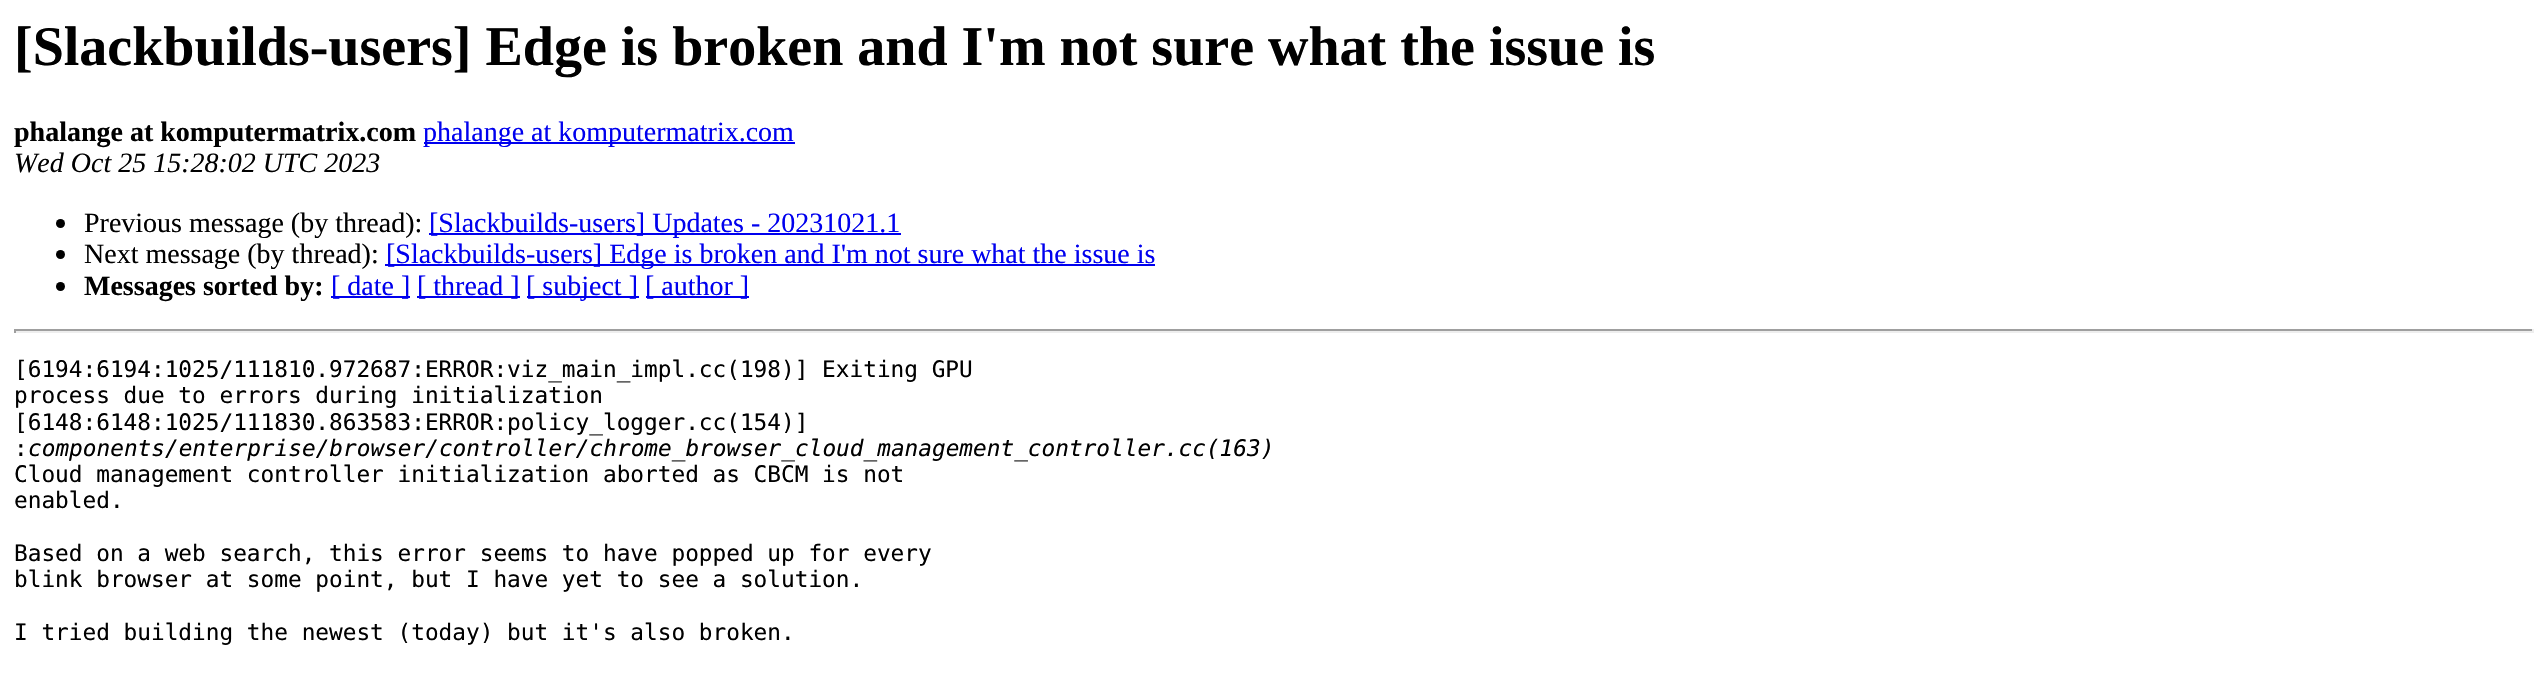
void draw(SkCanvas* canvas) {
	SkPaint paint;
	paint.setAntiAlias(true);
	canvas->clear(0xffffffff);
	SkFont f1(fontMgr->matchFamilyStyle("Liberation Serif", SkFontStyle::Bold()), 56);
	f1.setSubpixel(true);
	paint.setColor(0xff000000);
	canvas->drawString("[Slackbuilds-users] Edge is broken and I'm not sure what the issue is", 14, 65, f1, paint);
	SkFont f2(fontMgr->matchFamilyStyle("Liberation Serif", SkFontStyle::Bold()), 28);
	f2.setSubpixel(true);
	canvas->drawString("phalange at komputermatrix.com", 14, 141, f2, paint);
	paint.setColor(0xff0000ee);
	canvas->drawRect(SkRect::MakeXYWH(424, 142, 371, 2), paint);
	SkFont f3(fontMgr->matchFamilyStyle("Liberation Serif", SkFontStyle::Normal()), 28);
	f3.setSubpixel(true);
	canvas->drawString("phalange at komputermatrix.com", 423, 141, f3, paint);
	SkFont f4(fontMgr->matchFamilyStyle("Liberation Serif", SkFontStyle::Italic()), 28);
	f4.setSubpixel(true);
	paint.setColor(0xff000000);
	canvas->drawString("Wed Oct 25 15:28:02 UTC 2023", 14, 172, f4, paint);
	canvas->drawCircle(60.5, 223.5, 4.5, paint);
	canvas->drawString("Previous message (by thread):", 84, 232, f3, paint);
	paint.setColor(0xff0000ee);
	canvas->drawRect(SkRect::MakeXYWH(429, 233, 472, 2), paint);
	canvas->drawString("[Slackbuilds-users] Updates - 20231021.1", 429, 232, f3, paint);
	paint.setColor(0xff000000);
	canvas->drawCircle(60.5, 254.5, 4.5, paint);
	canvas->drawString("Next message (by thread):", 84, 263, f3, paint);
	paint.setColor(0xff0000ee);
	canvas->drawRect(SkRect::MakeXYWH(385, 264, 770, 2), paint);
	canvas->drawString("[Slackbuilds-users] Edge is broken and I'm not sure what the issue is", 386, 263, f3, paint);
	paint.setColor(0xff000000);
	canvas->drawCircle(60.5, 286.5, 4.5, paint);
	canvas->drawString("Messages sorted by:", 84, 295, f2, paint);
	paint.setColor(0xff0000ee);
	canvas->drawRect(SkRect::MakeXYWH(331, 296, 79, 2), paint);
	canvas->drawString("[ date ]", 331, 295, f3, paint);
	canvas->drawRect(SkRect::MakeXYWH(417, 296, 103, 2), paint);
	canvas->drawString("[ thread ]", 417, 295, f3, paint);
	canvas->drawRect(SkRect::MakeXYWH(527, 296, 112, 2), paint);
	canvas->drawString("[ subject ]", 526, 295, f3, paint);
	canvas->drawRect(SkRect::MakeXYWH(646, 296, 103, 2), paint);
	canvas->drawString("[ author ]", 645, 295, f3, paint);
	paint.setColor(0xff9f9f9f);
	canvas->drawRect(SkRect::MakeXYWH(14, 329, 2520, 2), paint);
	paint.setColor(0xffeeeeee);
	canvas->drawRect(SkRect::MakeXYWH(2532, 329, 2, 4), paint);
	canvas->drawRect(SkRect::MakeXYWH(14, 331, 2520, 2), paint);
	paint.setColor(0xff9f9f9f);
	canvas->drawRect(SkRect::MakeXYWH(14, 329, 2, 4), paint);
	SkFont f5(fontMgr->matchFamilyStyle("DejaVu Sans Mono", SkFontStyle::Normal()), 22.75);
	f5.setSubpixel(true);
	paint.setColor(0xff000000);
	canvas->drawString("[6194:6194:1025/111810.972687:ERROR:viz_main_impl.cc(198)] Exiting GPU", 14, 377, f5, paint);
	canvas->drawString("process due to errors during initialization", 14, 403, f5, paint);
	canvas->drawString("[6148:6148:1025/111830.863583:ERROR:policy_logger.cc(154)]", 14, 430, f5, paint);
	canvas->drawString(":", 14, 456, f5, paint);
	SkFont f6(fontMgr->matchFamilyStyle("DejaVu Sans Mono", SkFontStyle::Italic()), 22.75);
	f6.setSubpixel(true);
	canvas->drawString("components/enterprise/browser/controller/chrome_browser_cloud_management_controller.cc(163)", 28, 456, f6, paint);
	canvas->drawString("Cloud management controller initialization aborted as CBCM is not", 14, 482, f5, paint);
	canvas->drawString("enabled.", 14, 508, f5, paint);
	canvas->drawString("Based on a web search, this error seems to have popped up for every", 14, 561, f5, paint);
	canvas->drawString("blink browser at some point, but I have yet to see a solution.", 14, 587, f5, paint);
	canvas->drawString("I tried building the newest (today) but it's also broken.", 14, 640, f5, paint);
}
